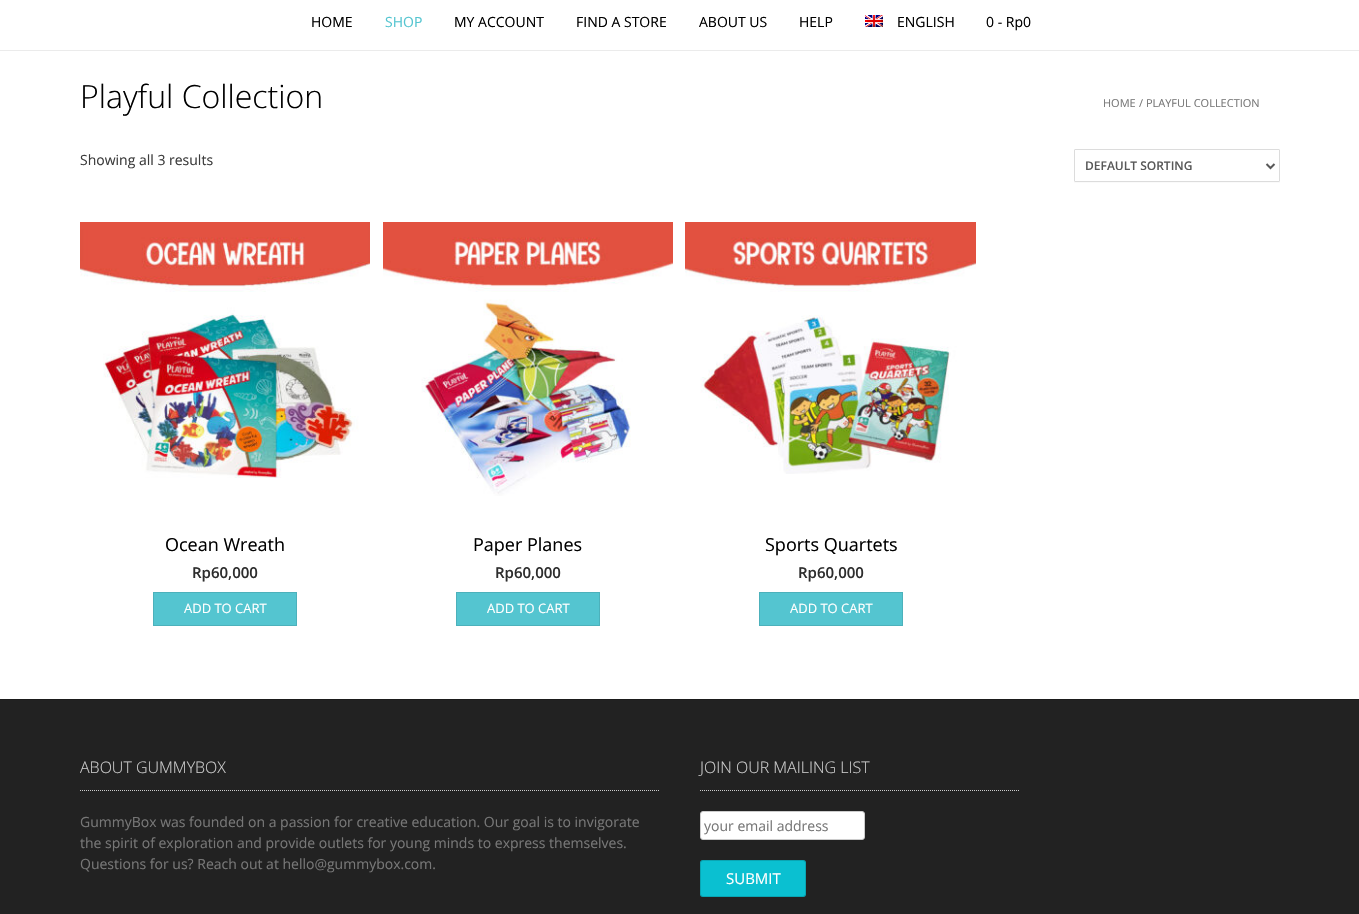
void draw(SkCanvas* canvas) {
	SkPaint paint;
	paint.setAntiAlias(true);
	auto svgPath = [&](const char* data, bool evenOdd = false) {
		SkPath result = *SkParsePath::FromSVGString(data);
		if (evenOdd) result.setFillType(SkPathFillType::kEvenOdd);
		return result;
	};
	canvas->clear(0xffffffff);
	paint.setColor(0xffebebeb);
	canvas->drawRect(SkRect::MakeXYWH(0, 50, 1359, 1), paint);
	SkFont f1(fontMgr->matchFamilyStyle("Open Sans", SkFontStyle::Normal()), 14);
	f1.setSubpixel(true);
	paint.setColor(0xff000000);
	canvas->drawString("HOME", 311, 27, f1, paint);
	paint.setColor(0xff54c5d0);
	canvas->drawString("SHOP", 385, 27, f1, paint);
	paint.setColor(0xff000000);
	canvas->drawString("MY ACCOUNT", 454, 27, f1, paint);
	canvas->drawString("FIND A STORE", 576, 27, f1, paint);
	canvas->drawString("ABOUT US", 699, 27, f1, paint);
	canvas->drawString("HELP", 799, 27, f1, paint);
	canvas->drawImageRect(SkImages::DeferredFromEncodedData(SkData::MakeFromFileName("img1.png")), SkRect::MakeXYWH(865, 15, 18, 12), SkSamplingOptions());
	canvas->drawString("ENGLISH", 897, 27, f1, paint);
	canvas->drawString("0 - Rp0", 986, 27, f1, paint);
	SkFont f2(fontMgr->matchFamilyStyle("Open Sans", SkFontStyle(300, SkFontStyle::kNormal_Width, SkFontStyle::kUpright_Slant)), 32);
	f2.setSubpixel(true);
	canvas->drawString("Playful Collection", 80, 108, f2, paint);
	SkFont f3(fontMgr->matchFamilyStyle("Open Sans", SkFontStyle::Normal()), 11);
	f3.setSubpixel(true);
	paint.setColor(0xff777777);
	canvas->drawString("HOME", 1103, 107, f3, paint);
	canvas->drawString("/ PLAYFUL COLLECTION", 1139, 107, f3, paint);
	paint.setColor(0xff3c3c3c);
	canvas->drawString("Showing all 3 results", 80, 165, f1, paint);
	paint.setColor(0xfffafafa);
	canvas->drawPath(svgPath("M1074 181C1074 182 1074 183 1075 183H1279H1280V181L1279 182H1075Z"), paint);
	paint.setStroke(true);
	paint.setStrokeWidth(1);
	paint.setColor(0xffdcdcdc);
	canvas->drawRoundRect(SkRect::MakeXYWH(1074.5, 149.5, 205, 32), 0.5, 0.5, paint);
	paint.setStrokeWidth(2);
	paint.setColor(0xff595959);
	canvas->drawPath(svgPath("M1266.5 164L1270.5 168L1274.5 164"), paint);
	SkFont f4(fontMgr->matchFamilyStyle("Open Sans", SkFontStyle(600, SkFontStyle::kNormal_Width, SkFontStyle::kUpright_Slant)), 12);
	f4.setSubpixel(true);
	paint.setStroke(false);
	canvas->drawString("DEFAULT SORTING", 1085, 170, f4, paint);
	canvas->drawImageRect(SkImages::DeferredFromEncodedData(SkData::MakeFromFileName("img2.png")), SkRect::MakeXYWH(80, 222, 290, 256), SkSamplingOptions());
	SkFont f5(fontMgr->matchFamilyStyle("Open Sans", SkFontStyle::Normal()), 18);
	f5.setSubpixel(true);
	paint.setColor(0xff000000);
	canvas->drawString("Ocean Wreath", 165, 551, f5, paint);
	SkFont f6(fontMgr->matchFamilyStyle("Open Sans", SkFontStyle(600, SkFontStyle::kNormal_Width, SkFontStyle::kUpright_Slant)), 15);
	f6.setSubpixel(true);
	paint.setColor(0xff2d2d2d);
	canvas->drawString("Rp60,000", 192, 578, f6, paint);
	paint.setColor(0xff54c5d0);
	canvas->drawRect(SkRect::MakeXYWH(153.5, 592.5, 143, 33), paint);
	paint.setStroke(true);
	paint.setStrokeWidth(1);
	paint.setColor(0xff4cb1bb);
	canvas->drawRect(SkRect::MakeXYWH(153.5, 592.5, 143, 33), paint);
	SkFont f7(fontMgr->matchFamilyStyle("Open Sans", SkFontStyle::Normal()), 13);
	f7.setSubpixel(true);
	paint.setStroke(false);
	paint.setColor(0xffffffff);
	canvas->drawString("ADD TO CART", 184, 613, f7, paint);
	canvas->drawImageRect(SkImages::DeferredFromEncodedData(SkData::MakeFromFileName("img3.png")), SkRect::MakeXYWH(383, 222, 290, 274), SkSamplingOptions());
	paint.setColor(0xff000000);
	canvas->drawString("Paper Planes", 473, 551, f5, paint);
	paint.setColor(0xff2d2d2d);
	canvas->drawString("Rp60,000", 495, 578, f6, paint);
	paint.setColor(0xff54c5d0);
	canvas->drawRect(SkRect::MakeXYWH(456.5, 592.5, 143, 33), paint);
	paint.setStroke(true);
	paint.setColor(0xff4cb1bb);
	canvas->drawRect(SkRect::MakeXYWH(456.5, 592.5, 143, 33), paint);
	paint.setStroke(false);
	paint.setColor(0xffffffff);
	canvas->drawString("ADD TO CART", 487, 613, f7, paint);
	canvas->drawImageRect(SkImages::DeferredFromEncodedData(SkData::MakeFromFileName("img4.png")), SkRect::MakeXYWH(685, 222, 291, 252), SkSamplingOptions());
	paint.setColor(0xff000000);
	canvas->drawString("Sports Quartets", 765, 551, f5, paint);
	paint.setColor(0xff2d2d2d);
	canvas->drawString("Rp60,000", 798, 578, f6, paint);
	paint.setColor(0xff54c5d0);
	canvas->drawRect(SkRect::MakeXYWH(759.5, 592.5, 143, 33), paint);
	paint.setStroke(true);
	paint.setColor(0xff4cb1bb);
	canvas->drawRect(SkRect::MakeXYWH(759.5, 592.5, 143, 33), paint);
	paint.setStroke(false);
	paint.setColor(0xffffffff);
	canvas->drawString("ADD TO CART", 790, 613, f7, paint);
	paint.setColor(0xff222222);
	canvas->drawRect(SkRect::MakeXYWH(0, 700, 1359, 214), paint);
	paint.setColor(0xff1b1b1b);
	canvas->drawRect(SkRect::MakeXYWH(0, 699, 1359, 1), paint);
	paint.setStroke(true);
	paint.setColor(0xffcccccc);
	paint.setPathEffect(SkDashPathEffect::Make({{1, 1}}, 0));
	canvas->drawPath(svgPath("M80 790.5H660"), paint);
	paint.setPathEffect(nullptr);
	SkFont f8(fontMgr->matchFamilyStyle("Open Sans", SkFontStyle(300, SkFontStyle::kNormal_Width, SkFontStyle::kUpright_Slant)), 16);
	f8.setSubpixel(true);
	paint.setStroke(false);
	canvas->drawString("ABOUT GUMMYBOX", 80, 773, f8, paint);
	paint.setColor(0xff777777);
	canvas->drawString("GummyBox was founded on a passion for creative education. Our goal is to invigorate", 80, 827, f1, paint);
	canvas->drawString("the spirit of exploration and provide outlets for young minds to express themselves.", 80, 848, f1, paint);
	canvas->drawString("Questions for us? Reach out at hello@gummybox.com.", 80, 869, f1, paint);
	paint.setStroke(true);
	paint.setColor(0xffcccccc);
	paint.setPathEffect(SkDashPathEffect::Make({{1, 1}}, 0));
	canvas->drawPath(svgPath("M700 790.5H1020"), paint);
	paint.setPathEffect(nullptr);
	paint.setStroke(false);
	canvas->drawString("JOIN OUR MAILING LIST", 700, 773, f8, paint);
	paint.setColor(0xffffffff);
	canvas->drawRoundRect(SkRect::MakeXYWH(700.5, 811.5, 164, 28), 2.5, 2.5, paint);
	paint.setStroke(true);
	paint.setColor(0xffcccccc);
	canvas->drawRoundRect(SkRect::MakeXYWH(700.5, 811.5, 164, 28), 2.5, 2.5, paint);
	canvas->save();
	canvas->clipRect(SkRect::MakeXYWH(704, 816, 157, 19));
	paint.setStroke(false);
	paint.setColor(0xff777777);
	canvas->drawString("your email address", 704, 831, f1, paint);
	canvas->restore();
	paint.setColor(0xff0ac0d1);
	canvas->drawRoundRect(SkRect::MakeXYWH(700, 860, 106, 37), 3, 3, paint);
	paint.setStroke(true);
	paint.setColor(0x24000000);
	canvas->drawRoundRect(SkRect::MakeXYWH(700.5, 860.5, 105, 36), 2.5, 2.5, paint);
	SkFont f9(fontMgr->matchFamilyStyle("Open Sans", SkFontStyle::Normal()), 15);
	f9.setSubpixel(true);
	paint.setStroke(false);
	paint.setColor(0xffffffff);
	canvas->drawString("SUBMIT", 726, 884, f9, paint);
}
